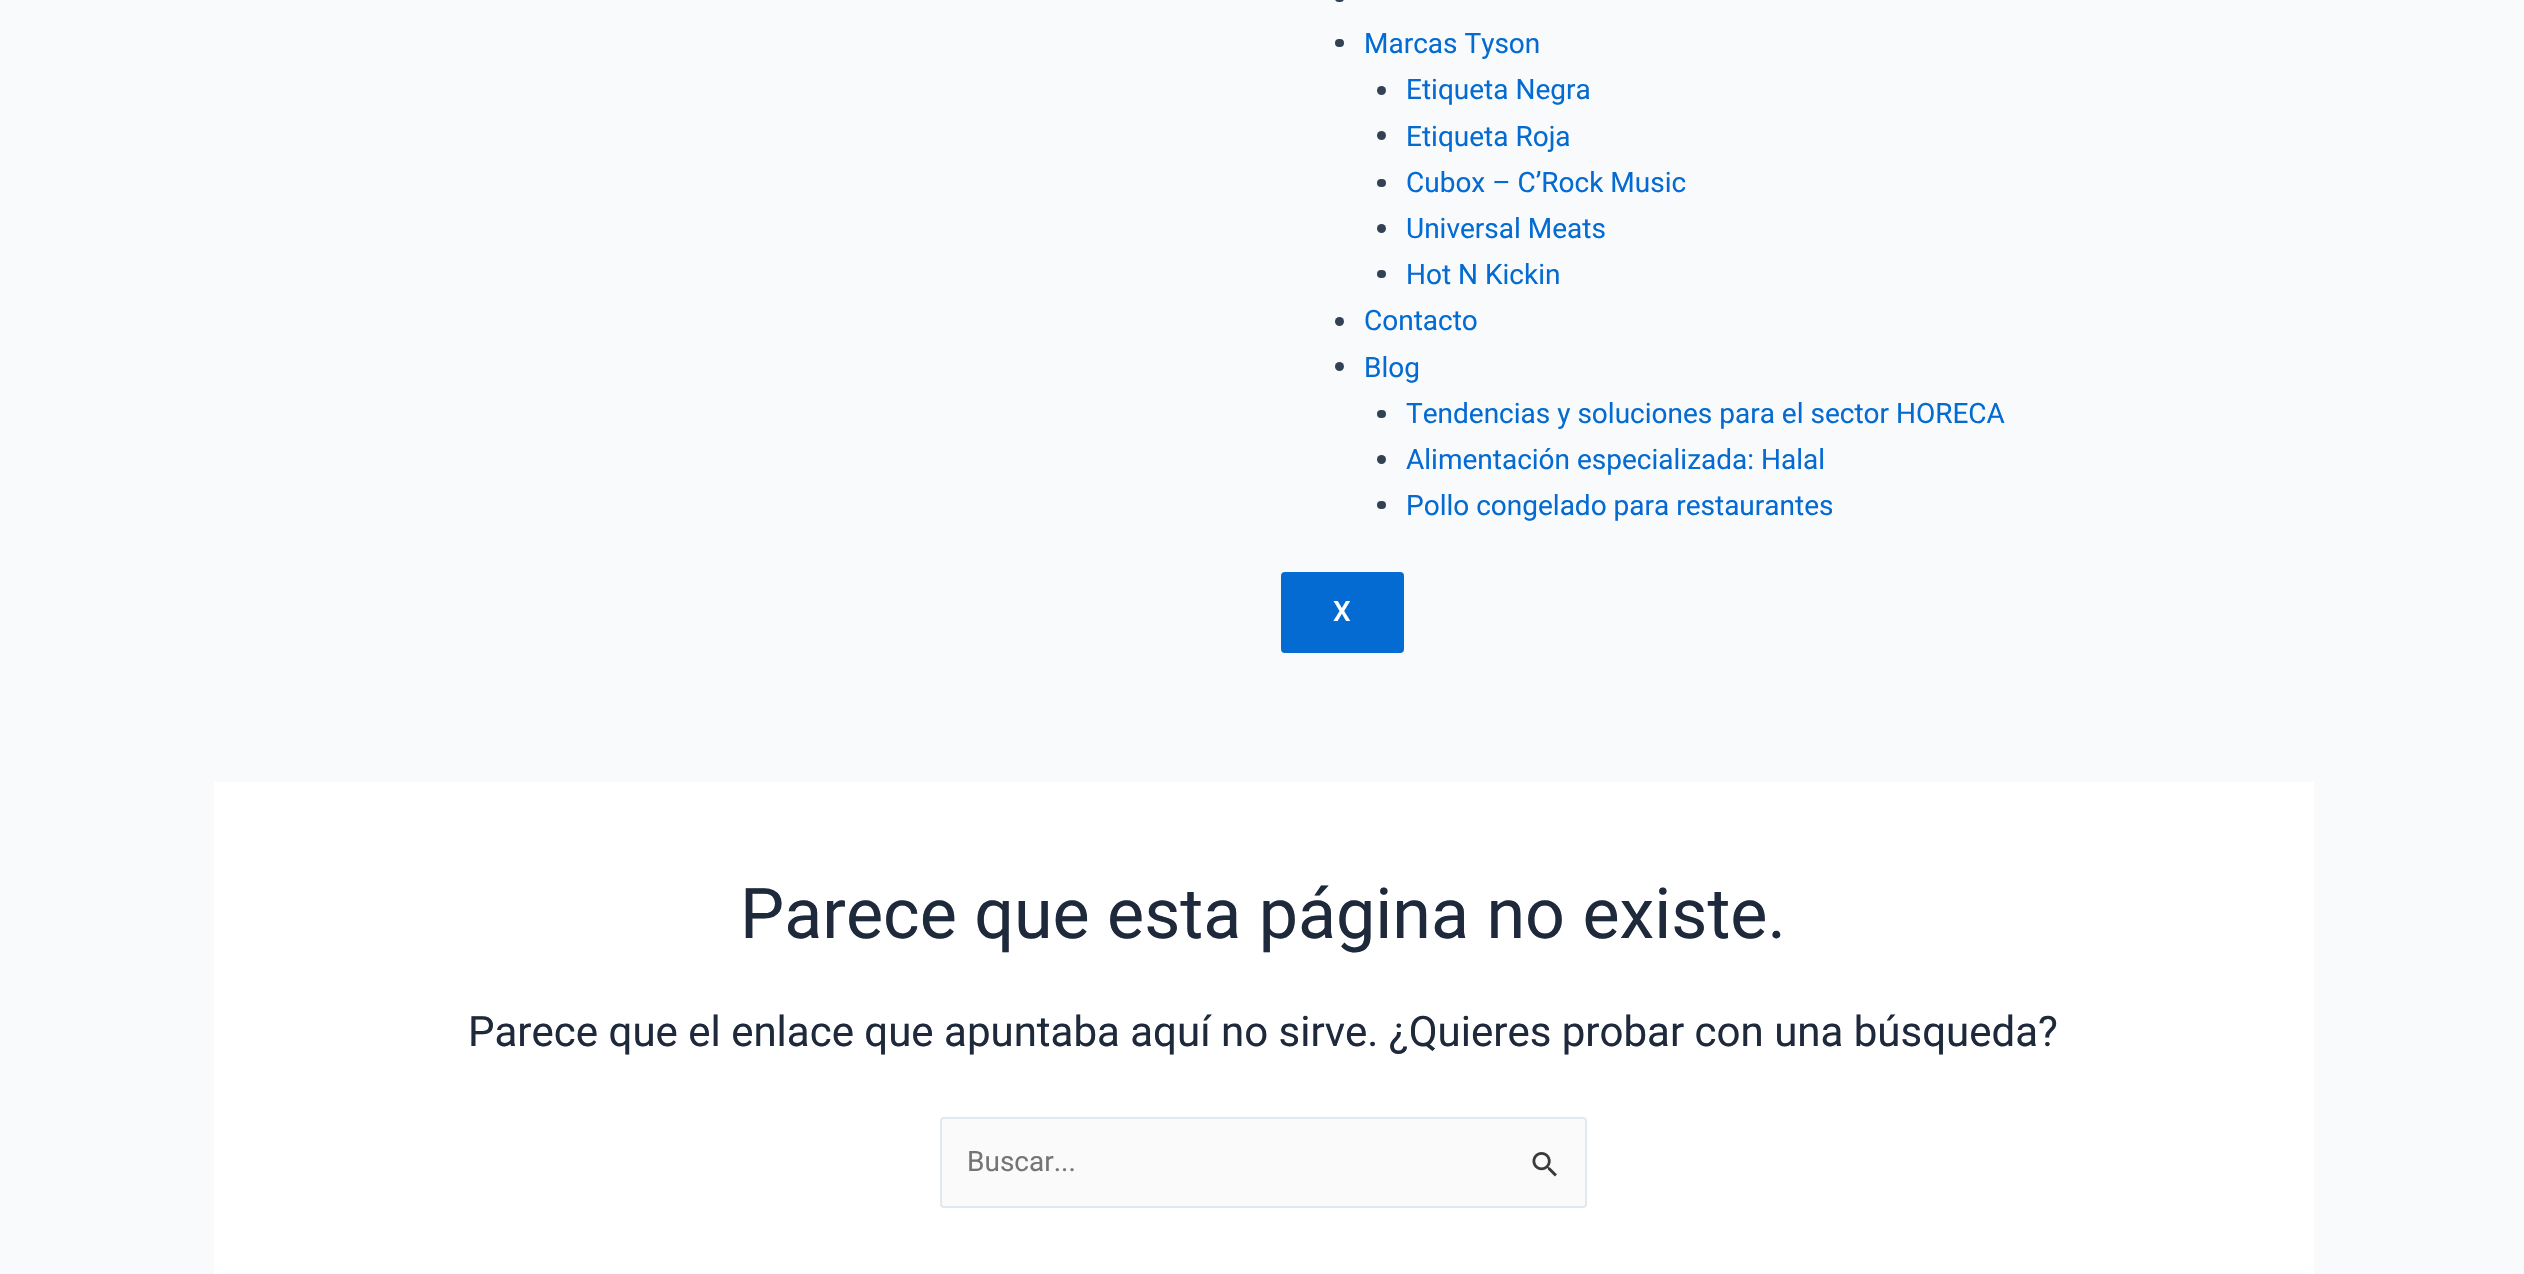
void draw(SkCanvas* canvas) {
	SkPaint paint;
	paint.setAntiAlias(true);
	canvas->clear(0xfff9fafb);
	paint.setColor(0xff334155);
	canvas->drawRoundRect(SkRect::MakeXYWH(1335, -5, 9, 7), 4.5, 4.5, paint);
	canvas->drawRoundRect(SkRect::MakeXYWH(1335, 39, 9, 8), 4, 4, paint);
	SkFont f1(fontMgr->matchFamilyStyle("Roboto", SkFontStyle::Normal()), 28);
	f1.setSubpixel(true);
	paint.setColor(0xff046bd2);
	canvas->drawString("Marcas Tyson", 1364, 53, f1, paint);
	paint.setColor(0xff334155);
	canvas->drawCircle(1381.5, 90.5, 4.5, paint);
	paint.setColor(0xff046bd2);
	canvas->drawString("Etiqueta Negra", 1406, 99, f1, paint);
	paint.setColor(0xff334155);
	canvas->drawCircle(1381.5, 135.5, 4.5, paint);
	paint.setColor(0xff046bd2);
	canvas->drawString("Etiqueta Roja", 1406, 146, f1, paint);
	paint.setColor(0xff334155);
	canvas->drawRoundRect(SkRect::MakeXYWH(1377, 179, 9, 8), 4, 4, paint);
	paint.setColor(0xff046bd2);
	canvas->drawString("Cubox – C’Rock Music", 1406, 192, f1, paint);
	paint.setColor(0xff334155);
	canvas->drawCircle(1381.5, 228.5, 4.5, paint);
	paint.setColor(0xff046bd2);
	canvas->drawString("Universal Meats", 1406, 238, f1, paint);
	paint.setColor(0xff334155);
	canvas->drawRoundRect(SkRect::MakeXYWH(1377, 270, 9, 8), 4, 4, paint);
	paint.setColor(0xff046bd2);
	canvas->drawString("Hot N Kickin", 1406, 284, f1, paint);
	paint.setColor(0xff334155);
	canvas->drawCircle(1339.5, 321.5, 4.5, paint);
	paint.setColor(0xff046bd2);
	canvas->drawString("Contacto", 1364, 330, f1, paint);
	paint.setColor(0xff334155);
	canvas->drawCircle(1339.5, 366.5, 4.5, paint);
	paint.setColor(0xff046bd2);
	canvas->drawString("Blog", 1364, 377, f1, paint);
	paint.setColor(0xff334155);
	canvas->drawRoundRect(SkRect::MakeXYWH(1377, 410, 9, 8), 4, 4, paint);
	paint.setColor(0xff046bd2);
	canvas->drawString("Tendencias y soluciones para el sector HORECA", 1406, 423, f1, paint);
	paint.setColor(0xff334155);
	canvas->drawCircle(1381.5, 459.5, 4.5, paint);
	paint.setColor(0xff046bd2);
	canvas->drawString("Alimentación especializada: Halal", 1406, 469, f1, paint);
	paint.setColor(0xff334155);
	canvas->drawRoundRect(SkRect::MakeXYWH(1377, 501, 9, 8), 4, 4, paint);
	paint.setColor(0xff046bd2);
	canvas->drawString("Pollo congelado para restaurantes", 1406, 515, f1, paint);
	canvas->drawRoundRect(SkRect::MakeXYWH(1281, 572, 123, 81), 4, 4, paint);
	SkFont f2(fontMgr->matchFamilyStyle("Roboto", SkFontStyle(500, SkFontStyle::kNormal_Width, SkFontStyle::kUpright_Slant)), 28);
	f2.setSubpixel(true);
	paint.setColor(0xffffffff);
	canvas->drawString("X", 1333, 621, f2, paint);
	canvas->drawRect(SkRect::MakeXYWH(214, 782, 2100, 492), paint);
	SkFont f3(fontMgr->matchFamilyStyle("Roboto", SkFontStyle::Normal()), 70);
	f3.setSubpixel(true);
	paint.setColor(0xff1e293b);
	canvas->drawString("Parece que esta página no existe.", 740, 938, f3, paint);
	SkFont f4(fontMgr->matchFamilyStyle("Roboto", SkFontStyle::Normal()), 42);
	f4.setSubpixel(true);
	canvas->drawString("Parece que el enlace que apuntaba aquí no sirve. ¿Quieres probar con una búsqueda?", 468, 1046, f4, paint);
	paint.setColor(0xfffafafa);
	canvas->drawRoundRect(SkRect::MakeXYWH(941, 1118, 645, 89), 3, 3, paint);
	paint.setStroke(true);
	paint.setStrokeWidth(2);
	paint.setColor(0xffe2e8f0);
	canvas->drawRoundRect(SkRect::MakeXYWH(941, 1118, 645, 89), 3, 3, paint);
	paint.setStroke(false);
	paint.setColor(0xff757575);
	canvas->drawString("Buscar...", 967, 1171, f1, paint);
	canvas->drawImageRect(SkImages::DeferredFromEncodedData(SkData::MakeFromFileName("img1.png")), SkRect::MakeXYWH(1532, 1152, 25, 25), SkSamplingOptions());
}
